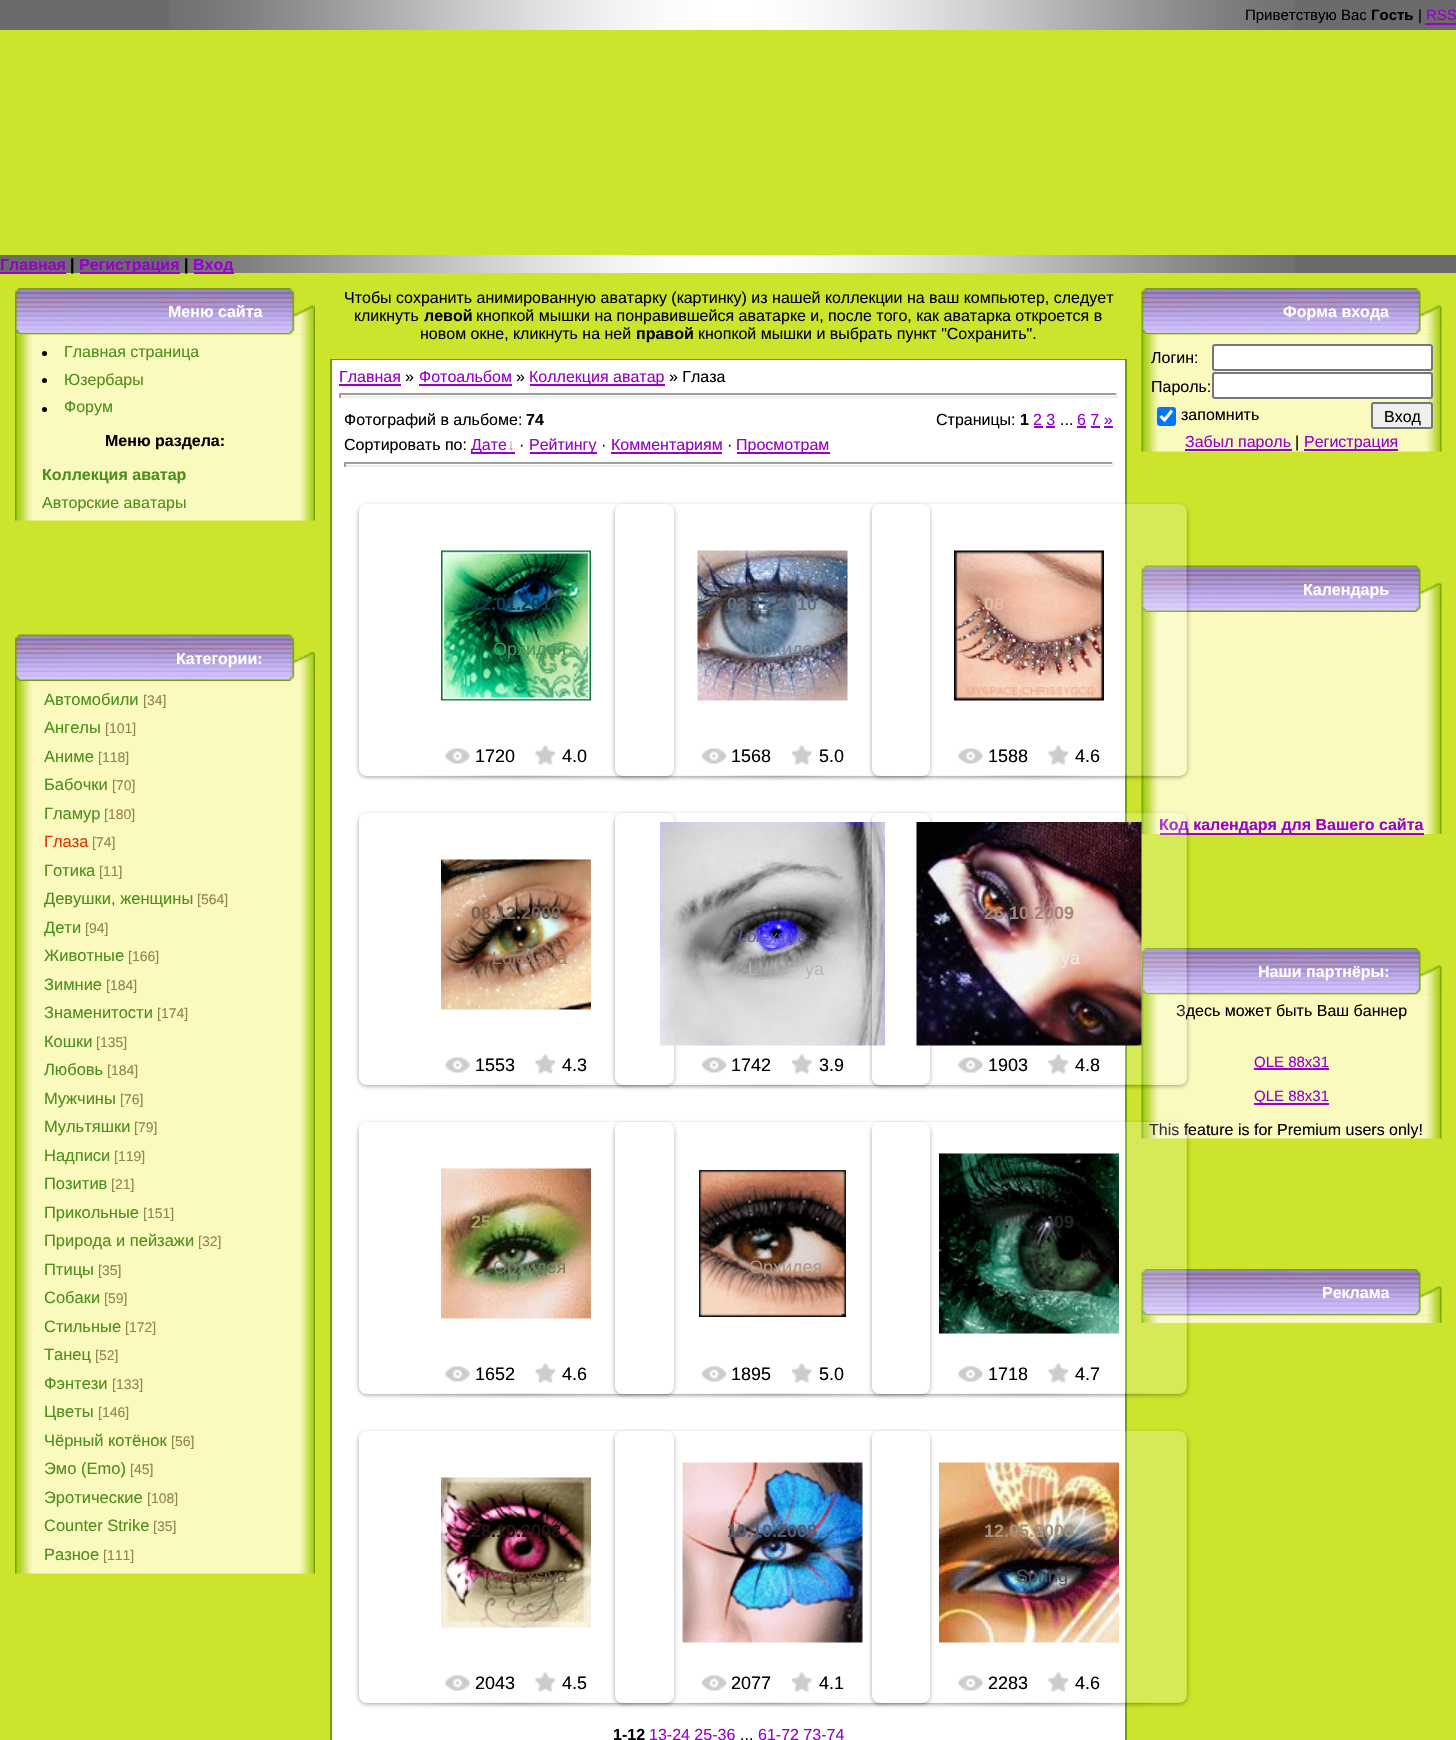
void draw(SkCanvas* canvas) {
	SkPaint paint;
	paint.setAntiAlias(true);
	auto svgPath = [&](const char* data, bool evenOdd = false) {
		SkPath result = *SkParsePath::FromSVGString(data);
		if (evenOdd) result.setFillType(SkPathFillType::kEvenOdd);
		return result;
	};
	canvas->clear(0xffcce42c);
	paint.setColor(0xff6b6b6b);
	canvas->drawRect(SkRect::MakeXYWH(0, 0, 1456, 30), paint);
	canvas->drawImageRect(SkImages::DeferredFromEncodedData(SkData::MakeFromFileName("img1.png")), SkRect::MakeXYWH(169, 0, 1126, 30), SkSamplingOptions());
	SkFont f1(fontMgr->matchFamilyStyle("Liberation Sans", SkFontStyle::Normal()), 15);
	f1.setSubpixel(true);
	paint.setColor(0xff000000);
	canvas->drawString("Приветствую Вас", 1245, 20, f1, paint);
	SkFont f2(fontMgr->matchFamilyStyle("Liberation Sans", SkFontStyle::Bold()), 15);
	f2.setSubpixel(true);
	canvas->drawString("Гость", 1371, 20, f2, paint);
	canvas->drawString("|", 1418, 20, f1, paint);
	paint.setColor(0xff9900cc);
	canvas->drawString("RSS", 1426, 20, f1, paint);
	canvas->drawRect(SkRect::MakeXYWH(1425, 23, 31, 2), paint);
	paint.setColor(0xff6b6b6b);
	canvas->drawRect(SkRect::MakeXYWH(0, 255, 1456, 18), paint);
	canvas->drawImageRect(SkImages::DeferredFromEncodedData(SkData::MakeFromFileName("img2.png")), SkRect::MakeXYWH(169, 255, 1126, 18), SkSamplingOptions());
	SkFont f3(fontMgr->matchFamilyStyle("Liberation Sans", SkFontStyle::Bold()), 16);
	f3.setSubpixel(true);
	paint.setColor(0xff9900cc);
	canvas->drawString("Главная", 0, 270, f3, paint);
	canvas->drawRect(SkRect::MakeXYWH(0, 272, 66, 2), paint);
	paint.setColor(0xff000000);
	canvas->drawString("|", 70, 270, f3, paint);
	paint.setColor(0xff9900cc);
	canvas->drawRect(SkRect::MakeXYWH(80, 272, 100, 2), paint);
	canvas->drawString("Регистрация", 79, 270, f3, paint);
	paint.setColor(0xff000000);
	canvas->drawString("|", 184, 270, f3, paint);
	paint.setColor(0xff9900cc);
	canvas->drawRect(SkRect::MakeXYWH(194, 272, 40, 2), paint);
	canvas->drawString("Вход", 193, 270, f3, paint);
	canvas->drawImageRect(SkImages::DeferredFromEncodedData(SkData::MakeFromFileName("img3.png")), SkRect::MakeXYWH(15, 288, 300, 47), SkSamplingOptions());
	paint.setColor(0xffffffff);
	canvas->drawString("Меню сайта", 168, 317, f3, paint);
	canvas->drawImageRect(SkImages::DeferredFromEncodedData(SkData::MakeFromFileName("img4.png")), SkRect::MakeXYWH(15, 334, 300, 187), SkSamplingOptions());
	paint.setColor(0xff000000);
	canvas->drawCircle(44.5, 353.5, 2.5, paint);
	SkFont f4(fontMgr->matchFamilyStyle("Liberation Sans", SkFontStyle::Normal()), 16);
	f4.setSubpixel(true);
	paint.setColor(0xff4b901a);
	canvas->drawString("Главная страница", 64, 357, f4, paint);
	paint.setColor(0xff000000);
	canvas->drawCircle(44.5, 380.5, 2.5, paint);
	paint.setColor(0xff4b901a);
	canvas->drawString("Юзербары", 64, 385, f4, paint);
	paint.setColor(0xff000000);
	canvas->drawCircle(44.5, 409.5, 2.5, paint);
	paint.setColor(0xff4b901a);
	canvas->drawString("Форум", 64, 412, f4, paint);
	paint.setColor(0xff000000);
	canvas->drawString("Меню раздела:", 105, 446, f3, paint);
	paint.setColor(0xff4b901a);
	canvas->drawString("Коллекция аватар", 42, 480, f3, paint);
	canvas->drawString("Авторские аватары", 42, 508, f4, paint);
	canvas->drawImageRect(SkImages::DeferredFromEncodedData(SkData::MakeFromFileName("img5.png")), SkRect::MakeXYWH(15, 634, 300, 47), SkSamplingOptions());
	paint.setColor(0xffffffff);
	canvas->drawString("Категории:", 176, 664, f3, paint);
	canvas->drawImageRect(SkImages::DeferredFromEncodedData(SkData::MakeFromFileName("img6.png")), SkRect::MakeXYWH(15, 681, 300, 893), SkSamplingOptions());
	SkFont f5(fontMgr->matchFamilyStyle("Liberation Sans", SkFontStyle::Normal()), 16.5);
	f5.setSubpixel(true);
	paint.setColor(0xff4b901a);
	canvas->drawString("Автомобили", 44, 705, f5, paint);
	SkFont f6(fontMgr->matchFamilyStyle("Liberation Sans", SkFontStyle::Normal()), 14);
	f6.setSubpixel(true);
	paint.setColor(0xff948549);
	canvas->drawString("[34]", 143, 705, f6, paint);
	paint.setColor(0xff4b901a);
	canvas->drawString("Ангелы", 44, 733, f5, paint);
	paint.setColor(0xff948549);
	canvas->drawString("[101]", 105, 733, f6, paint);
	paint.setColor(0xff4b901a);
	canvas->drawString("Аниме", 44, 762, f5, paint);
	paint.setColor(0xff948549);
	canvas->drawString("[118]", 98, 762, f6, paint);
	paint.setColor(0xff4b901a);
	canvas->drawString("Бабочки", 44, 790, f5, paint);
	paint.setColor(0xff948549);
	canvas->drawString("[70]", 112, 790, f6, paint);
	paint.setColor(0xff4b901a);
	canvas->drawString("Гламур", 44, 819, f5, paint);
	paint.setColor(0xff948549);
	canvas->drawString("[180]", 104, 819, f6, paint);
	paint.setColor(0xffdc3700);
	canvas->drawString("Глаза", 44, 847, f5, paint);
	paint.setColor(0xff948549);
	canvas->drawString("[74]", 92, 847, f6, paint);
	paint.setColor(0xff4b901a);
	canvas->drawString("Готика", 44, 876, f5, paint);
	paint.setColor(0xff948549);
	canvas->drawString("[11]", 99, 876, f6, paint);
	paint.setColor(0xff4b901a);
	canvas->drawString("Девушки, женщины", 44, 904, f5, paint);
	paint.setColor(0xff948549);
	canvas->drawString("[564]", 197, 904, f6, paint);
	paint.setColor(0xff4b901a);
	canvas->drawString("Дети", 44, 933, f5, paint);
	paint.setColor(0xff948549);
	canvas->drawString("[94]", 85, 933, f6, paint);
	paint.setColor(0xff4b901a);
	canvas->drawString("Животные", 44, 961, f5, paint);
	paint.setColor(0xff948549);
	canvas->drawString("[166]", 128, 961, f6, paint);
	paint.setColor(0xff4b901a);
	canvas->drawString("Зимние", 44, 990, f5, paint);
	paint.setColor(0xff948549);
	canvas->drawString("[184]", 106, 990, f6, paint);
	paint.setColor(0xff4b901a);
	canvas->drawString("Знаменитости", 44, 1018, f5, paint);
	paint.setColor(0xff948549);
	canvas->drawString("[174]", 157, 1018, f6, paint);
	paint.setColor(0xff4b901a);
	canvas->drawString("Кошки", 44, 1047, f5, paint);
	paint.setColor(0xff948549);
	canvas->drawString("[135]", 96, 1047, f6, paint);
	paint.setColor(0xff4b901a);
	canvas->drawString("Любовь", 44, 1075, f5, paint);
	paint.setColor(0xff948549);
	canvas->drawString("[184]", 107, 1075, f6, paint);
	paint.setColor(0xff4b901a);
	canvas->drawString("Мужчины", 44, 1104, f5, paint);
	paint.setColor(0xff948549);
	canvas->drawString("[76]", 120, 1104, f6, paint);
	paint.setColor(0xff4b901a);
	canvas->drawString("Мультяшки", 44, 1132, f5, paint);
	paint.setColor(0xff948549);
	canvas->drawString("[79]", 134, 1132, f6, paint);
	paint.setColor(0xff4b901a);
	canvas->drawString("Надписи", 44, 1161, f5, paint);
	paint.setColor(0xff948549);
	canvas->drawString("[119]", 114, 1161, f6, paint);
	paint.setColor(0xff4b901a);
	canvas->drawString("Позитив", 44, 1189, f5, paint);
	paint.setColor(0xff948549);
	canvas->drawString("[21]", 111, 1189, f6, paint);
	paint.setColor(0xff4b901a);
	canvas->drawString("Прикольные", 44, 1218, f5, paint);
	paint.setColor(0xff948549);
	canvas->drawString("[151]", 143, 1218, f6, paint);
	paint.setColor(0xff4b901a);
	canvas->drawString("Природа и пейзажи", 44, 1246, f5, paint);
	paint.setColor(0xff948549);
	canvas->drawString("[32]", 198, 1246, f6, paint);
	paint.setColor(0xff4b901a);
	canvas->drawString("Птицы", 44, 1275, f5, paint);
	paint.setColor(0xff948549);
	canvas->drawString("[35]", 98, 1275, f6, paint);
	paint.setColor(0xff4b901a);
	canvas->drawString("Собаки", 44, 1303, f5, paint);
	paint.setColor(0xff948549);
	canvas->drawString("[59]", 104, 1303, f6, paint);
	paint.setColor(0xff4b901a);
	canvas->drawString("Стильные", 44, 1332, f5, paint);
	paint.setColor(0xff948549);
	canvas->drawString("[172]", 125, 1332, f6, paint);
	paint.setColor(0xff4b901a);
	canvas->drawString("Танец", 44, 1360, f5, paint);
	paint.setColor(0xff948549);
	canvas->drawString("[52]", 95, 1360, f6, paint);
	paint.setColor(0xff4b901a);
	canvas->drawString("Фэнтези", 44, 1389, f5, paint);
	paint.setColor(0xff948549);
	canvas->drawString("[133]", 112, 1389, f6, paint);
	paint.setColor(0xff4b901a);
	canvas->drawString("Цветы", 44, 1417, f5, paint);
	paint.setColor(0xff948549);
	canvas->drawString("[146]", 98, 1417, f6, paint);
	paint.setColor(0xff4b901a);
	canvas->drawString("Чёрный котёнок", 44, 1446, f5, paint);
	paint.setColor(0xff948549);
	canvas->drawString("[56]", 171, 1446, f6, paint);
	paint.setColor(0xff4b901a);
	canvas->drawString("Эмо (Emo)", 44, 1474, f5, paint);
	paint.setColor(0xff948549);
	canvas->drawString("[45]", 130, 1474, f6, paint);
	paint.setColor(0xff4b901a);
	canvas->drawString("Эротические", 44, 1503, f5, paint);
	paint.setColor(0xff948549);
	canvas->drawString("[108]", 147, 1503, f6, paint);
	paint.setColor(0xff4b901a);
	canvas->drawString("Counter Strike", 44, 1531, f5, paint);
	paint.setColor(0xff948549);
	canvas->drawString("[35]", 153, 1531, f6, paint);
	paint.setColor(0xff4b901a);
	canvas->drawString("Разное", 44, 1560, f5, paint);
	paint.setColor(0xff948549);
	canvas->drawString("[111]", 103, 1560, f6, paint);
	paint.setColor(0xff000000);
	canvas->drawString("Чтобы сохранить анимированную аватарку (картинку) из нашей коллекции на ваш компьютер, следует", 344, 303, f4, paint);
	canvas->drawString("кликнуть", 354, 321, f4, paint);
	canvas->drawString("левой", 424, 321, f3, paint);
	canvas->drawString("кнопкой мышки на понравившейся аватарке и, после того, как аватарка откроется в", 476, 321, f4, paint);
	canvas->drawString("новом окне, кликнуть на ней", 420, 339, f4, paint);
	canvas->drawString("правой", 636, 339, f3, paint);
	canvas->drawString("кнопкой мышки и выбрать пункт \"Сохранить\".", 698, 339, f4, paint);
	paint.setStroke(true);
	paint.setStrokeWidth(2);
	paint.setColor(0xff6da104);
	canvas->drawRect(SkRect::MakeXYWH(331, 360, 795, 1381), paint);
	paint.setStroke(false);
	paint.setColor(0xffffffff);
	canvas->drawRect(SkRect::MakeXYWH(332, 360, 793, 1380), paint);
	paint.setColor(0xff9900cc);
	canvas->drawString("Главная", 339, 382, f4, paint);
	canvas->drawRect(SkRect::MakeXYWH(339, 384, 62, 2), paint);
	paint.setColor(0xff000000);
	canvas->drawString("»", 405, 382, f4, paint);
	paint.setColor(0xff9900cc);
	canvas->drawString("Фотоальбом", 419, 382, f4, paint);
	canvas->drawRect(SkRect::MakeXYWH(419, 384, 93, 2), paint);
	paint.setColor(0xff000000);
	canvas->drawString("»", 516, 382, f4, paint);
	paint.setColor(0xff9900cc);
	canvas->drawRect(SkRect::MakeXYWH(530, 384, 135, 2), paint);
	canvas->drawString("Коллекция аватар", 529, 382, f4, paint);
	paint.setColor(0xff000000);
	canvas->drawString("» Глаза", 669, 382, f4, paint);
	paint.setColor(0xff9f9f9f);
	canvas->drawRect(SkRect::MakeXYWH(339, 393, 779, 2), paint);
	paint.setColor(0xffeeeeee);
	canvas->drawRect(SkRect::MakeXYWH(1116, 393, 2, 5), paint);
	canvas->drawRect(SkRect::MakeXYWH(339, 396, 779, 2), paint);
	paint.setColor(0xff9f9f9f);
	canvas->drawRect(SkRect::MakeXYWH(339, 393, 2, 5), paint);
	paint.setColor(0xff000000);
	canvas->drawString("Фотографий в альбоме:", 344, 425, f4, paint);
	canvas->drawString("74", 526, 425, f3, paint);
	canvas->drawString("Страницы:", 936, 425, f4, paint);
	canvas->drawString("1", 1020, 425, f3, paint);
	paint.setColor(0xff9900cc);
	canvas->drawString("2 3", 1033, 425, f4, paint);
	canvas->drawRect(SkRect::MakeXYWH(1034, 426, 9, 2), paint);
	paint.setColor(0xff000000);
	canvas->drawString("...", 1060, 425, f4, paint);
	paint.setColor(0xff9900cc);
	canvas->drawRect(SkRect::MakeXYWH(1046, 426, 9, 2), paint);
	canvas->drawRect(SkRect::MakeXYWH(1077, 426, 9, 2), paint);
	canvas->drawString("6 7 »", 1077, 425, f4, paint);
	canvas->drawRect(SkRect::MakeXYWH(1091, 426, 9, 2), paint);
	canvas->drawRect(SkRect::MakeXYWH(1104, 426, 9, 2), paint);
	paint.setColor(0xff000000);
	canvas->drawString("Сортировать по:", 344, 450, f4, paint);
	paint.setColor(0xff9900cc);
	canvas->drawRect(SkRect::MakeXYWH(471, 452, 44, 2), paint);
	canvas->drawString("Дате", 471, 450, f4, paint);
	paint.setColor(0xffa0a0a0);
	canvas->drawString("↓", 507, 450, f4, paint);
	paint.setColor(0xff000000);
	canvas->drawString("·", 519, 450, f4, paint);
	paint.setColor(0xff9900cc);
	canvas->drawRect(SkRect::MakeXYWH(530, 452, 67, 2), paint);
	canvas->drawString("Рейтингу", 529, 450, f4, paint);
	paint.setColor(0xff000000);
	canvas->drawString("·", 601, 450, f4, paint);
	paint.setColor(0xff9900cc);
	canvas->drawRect(SkRect::MakeXYWH(611, 452, 111, 2), paint);
	canvas->drawString("Комментариям", 611, 450, f4, paint);
	paint.setColor(0xff000000);
	canvas->drawString("·", 727, 450, f4, paint);
	paint.setColor(0xff9900cc);
	canvas->drawRect(SkRect::MakeXYWH(737, 452, 93, 2), paint);
	canvas->drawString("Просмотрам", 736, 450, f4, paint);
	paint.setColor(0xff9f9f9f);
	canvas->drawRect(SkRect::MakeXYWH(344, 462, 769, 2), paint);
	paint.setColor(0xffeeeeee);
	canvas->drawRect(SkRect::MakeXYWH(1112, 462, 2, 5), paint);
	canvas->drawRect(SkRect::MakeXYWH(344, 465, 769, 2), paint);
	paint.setColor(0xff9f9f9f);
	canvas->drawRect(SkRect::MakeXYWH(344, 462, 2, 5), paint);
	canvas->save();
	canvas->clipPath(svgPath("M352 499H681V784H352ZM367 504H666C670.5 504 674 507.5 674 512V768C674 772.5 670.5 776 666 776H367C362.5 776 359 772.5 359 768V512C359 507.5 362.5 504 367 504Z", true), true);
	paint.setColor(0x5e000000);
	paint.setMaskFilter(SkMaskFilter::MakeBlur(kNormal_SkBlurStyle, 2));
	canvas->drawRoundRect(SkRect::MakeXYWH(359, 506, 315, 271), 8, 8, paint);
	paint.setMaskFilter(nullptr);
	canvas->restore();
	canvas->drawImageRect(SkImages::DeferredFromEncodedData(SkData::MakeFromFileName("img7.png")), SkRect::MakeXYWH(441, 550, 150, 151), SkSamplingOptions());
	SkFont f7(fontMgr->matchFamilyStyle("Liberation Sans", SkFontStyle::Bold()), 18);
	f7.setSubpixel(true);
	paint.setColor(0xff0b3e4e);
	canvas->drawString("12.01.2011", 471, 610, f7, paint);
	SkFont f8(fontMgr->matchFamilyStyle("Liberation Sans", SkFontStyle::Normal()), 18);
	f8.setSubpixel(true);
	paint.setColor(0xff4b945a);
	canvas->drawString("Орхидея", 493, 655, f8, paint);
	canvas->drawImageRect(SkImages::DeferredFromEncodedData(SkData::MakeFromFileName("img8.png")), SkRect::MakeXYWH(445, 748, 25, 16), SkSamplingOptions());
	paint.setColor(0xff000000);
	canvas->drawString("1720", 475, 762, f8, paint);
	canvas->drawImageRect(SkImages::DeferredFromEncodedData(SkData::MakeFromFileName("img9.png")), SkRect::MakeXYWH(535, 745, 20, 20), SkSamplingOptions());
	canvas->drawString("4.0", 562, 762, f8, paint);
	canvas->drawImageRect(SkImages::DeferredFromEncodedData(SkData::MakeFromFileName("img10.png")), SkRect::MakeXYWH(400, 775, 233, 5), SkSamplingOptions());
	canvas->save();
	canvas->clipPath(svgPath("M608 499H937V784H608ZM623 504H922C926.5 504 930 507.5 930 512V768C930 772.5 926.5 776 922 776H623C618.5 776 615 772.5 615 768V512C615 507.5 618.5 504 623 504Z", true), true);
	paint.setColor(0x5e000000);
	paint.setMaskFilter(SkMaskFilter::MakeBlur(kNormal_SkBlurStyle, 2));
	canvas->drawRoundRect(SkRect::MakeXYWH(615, 506, 315, 271), 8, 8, paint);
	paint.setMaskFilter(nullptr);
	canvas->restore();
	paint.setColor(0x33ffffff);
	canvas->drawRect(SkRect::MakeXYWH(669, 508, 7, 267), paint);
	canvas->drawImageRect(SkImages::DeferredFromEncodedData(SkData::MakeFromFileName("img11.png")), SkRect::MakeXYWH(697, 550, 151, 151), SkSamplingOptions());
	paint.setColor(0xff647183);
	canvas->drawString("03.12.2010", 727, 610, f7, paint);
	paint.setColor(0xff788497);
	canvas->drawString("Орхидея", 749, 655, f8, paint);
	canvas->drawImageRect(SkImages::DeferredFromEncodedData(SkData::MakeFromFileName("img12.png")), SkRect::MakeXYWH(702, 748, 24, 16), SkSamplingOptions());
	paint.setColor(0xff000000);
	canvas->drawString("1568", 731, 762, f8, paint);
	canvas->drawImageRect(SkImages::DeferredFromEncodedData(SkData::MakeFromFileName("img13.png")), SkRect::MakeXYWH(792, 745, 20, 20), SkSamplingOptions());
	canvas->drawString("5.0", 819, 762, f8, paint);
	canvas->drawImageRect(SkImages::DeferredFromEncodedData(SkData::MakeFromFileName("img14.png")), SkRect::MakeXYWH(663, 775, 227, 5), SkSamplingOptions());
	canvas->drawImageRect(SkImages::DeferredFromEncodedData(SkData::MakeFromFileName("img34.png")), SkRect::MakeXYWH(1141, 565, 301, 47), SkSamplingOptions());
	canvas->drawImageRect(SkImages::DeferredFromEncodedData(SkData::MakeFromFileName("img35.png")), SkRect::MakeXYWH(1141, 612, 301, 222), SkSamplingOptions());
	canvas->save();
	canvas->clipPath(svgPath("M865 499H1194V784H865ZM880 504H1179C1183.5 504 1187 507.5 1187 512V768C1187 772.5 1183.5 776 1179 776H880C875.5 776 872 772.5 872 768V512C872 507.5 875.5 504 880 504Z", true), true);
	paint.setColor(0x5e000000);
	paint.setMaskFilter(SkMaskFilter::MakeBlur(kNormal_SkBlurStyle, 2));
	canvas->drawRoundRect(SkRect::MakeXYWH(872, 506, 315, 271), 8, 8, paint);
	paint.setMaskFilter(nullptr);
	canvas->restore();
	canvas->drawImageRect(SkImages::DeferredFromEncodedData(SkData::MakeFromFileName("img15.png")), SkRect::MakeXYWH(926, 504, 261, 272), SkSamplingOptions());
	canvas->drawImageRect(SkImages::DeferredFromEncodedData(SkData::MakeFromFileName("img16.png")), SkRect::MakeXYWH(954, 550, 150, 151), SkSamplingOptions());
	paint.setColor(0xffebbba5);
	canvas->drawString("08", 984, 610, f7, paint);
	paint.setColor(0xff8e6a64);
	canvas->drawString("Lolexsiya", 1005, 655, f8, paint);
	canvas->drawImageRect(SkImages::DeferredFromEncodedData(SkData::MakeFromFileName("img8.png")), SkRect::MakeXYWH(958, 748, 25, 16), SkSamplingOptions());
	paint.setColor(0xff000000);
	canvas->drawString("1588", 988, 762, f8, paint);
	canvas->drawImageRect(SkImages::DeferredFromEncodedData(SkData::MakeFromFileName("img9.png")), SkRect::MakeXYWH(1048, 745, 20, 20), SkSamplingOptions());
	canvas->drawString("4.6", 1075, 762, f8, paint);
	canvas->drawImageRect(SkImages::DeferredFromEncodedData(SkData::MakeFromFileName("img17.png")), SkRect::MakeXYWH(919, 775, 222, 5), SkSamplingOptions());
	canvas->save();
	canvas->clipPath(svgPath("M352 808H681V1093H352ZM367 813H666C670.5 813 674 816.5 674 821V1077C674 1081.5 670.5 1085 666 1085H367C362.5 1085 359 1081.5 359 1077V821C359 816.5 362.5 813 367 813Z", true), true);
	paint.setColor(0x5e000000);
	paint.setMaskFilter(SkMaskFilter::MakeBlur(kNormal_SkBlurStyle, 2));
	canvas->drawRoundRect(SkRect::MakeXYWH(359, 815, 315, 271), 8, 8, paint);
	paint.setMaskFilter(nullptr);
	canvas->restore();
	canvas->drawImageRect(SkImages::DeferredFromEncodedData(SkData::MakeFromFileName("img18.png")), SkRect::MakeXYWH(441, 859, 150, 151), SkSamplingOptions());
	paint.setColor(0xff786150);
	canvas->drawString("08.12.2009", 471, 919, f7, paint);
	paint.setColor(0xff9e7862);
	canvas->drawString("Lolexsiya", 492, 964, f8, paint);
	canvas->drawImageRect(SkImages::DeferredFromEncodedData(SkData::MakeFromFileName("img8.png")), SkRect::MakeXYWH(445, 1057, 25, 16), SkSamplingOptions());
	paint.setColor(0xff000000);
	canvas->drawString("1553", 475, 1071, f8, paint);
	canvas->drawImageRect(SkImages::DeferredFromEncodedData(SkData::MakeFromFileName("img9.png")), SkRect::MakeXYWH(535, 1054, 20, 20), SkSamplingOptions());
	canvas->drawString("4.3", 562, 1071, f8, paint);
	canvas->drawImageRect(SkImages::DeferredFromEncodedData(SkData::MakeFromFileName("img10.png")), SkRect::MakeXYWH(400, 1084, 233, 5), SkSamplingOptions());
	canvas->save();
	canvas->clipPath(svgPath("M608 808H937V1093H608ZM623 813H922C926.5 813 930 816.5 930 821V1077C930 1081.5 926.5 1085 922 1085H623C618.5 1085 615 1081.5 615 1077V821C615 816.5 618.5 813 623 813Z", true), true);
	paint.setColor(0x5e000000);
	paint.setMaskFilter(SkMaskFilter::MakeBlur(kNormal_SkBlurStyle, 2));
	canvas->drawRoundRect(SkRect::MakeXYWH(615, 815, 315, 271), 8, 8, paint);
	paint.setMaskFilter(nullptr);
	canvas->restore();
	paint.setColor(0x33ffffff);
	canvas->drawRect(SkRect::MakeXYWH(669, 817, 7, 267), paint);
	canvas->drawImageRect(SkImages::DeferredFromEncodedData(SkData::MakeFromFileName("img19.png")), SkRect::MakeXYWH(660, 822, 225, 224), SkSamplingOptions());
	paint.setColor(0xff919191);
	canvas->drawString(".", 772, 909, f7, paint);
	SkFont f9(fontMgr->matchFamilyStyle("Liberation Sans", SkFontStyle::Italic()), 16.5);
	f9.setSubpixel(true);
	paint.setColor(0xff5f58b9);
	canvas->drawString("Lolexsiya", 738, 942, f9, paint);
	paint.setColor(0xffb7b7b7);
	canvas->drawString("L", 748, 975, f8, paint);
	canvas->drawString("ya", 805, 975, f8, paint);
	canvas->drawImageRect(SkImages::DeferredFromEncodedData(SkData::MakeFromFileName("img12.png")), SkRect::MakeXYWH(702, 1057, 24, 16), SkSamplingOptions());
	paint.setColor(0xff000000);
	canvas->drawString("1742", 731, 1071, f8, paint);
	canvas->drawImageRect(SkImages::DeferredFromEncodedData(SkData::MakeFromFileName("img13.png")), SkRect::MakeXYWH(792, 1054, 20, 20), SkSamplingOptions());
	canvas->drawString("3.9", 819, 1071, f8, paint);
	canvas->drawImageRect(SkImages::DeferredFromEncodedData(SkData::MakeFromFileName("img14.png")), SkRect::MakeXYWH(663, 1084, 227, 5), SkSamplingOptions());
	paint.setColor(0xff9900cc);
	canvas->drawRect(SkRect::MakeXYWH(1160, 833, 264, 2), paint);
	canvas->drawImageRect(SkImages::DeferredFromEncodedData(SkData::MakeFromFileName("img32.png")), SkRect::MakeXYWH(1141, 948, 301, 47), SkSamplingOptions());
	canvas->drawImageRect(SkImages::DeferredFromEncodedData(SkData::MakeFromFileName("img36.png")), SkRect::MakeXYWH(1141, 994, 301, 145), SkSamplingOptions());
	canvas->save();
	canvas->clipPath(svgPath("M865 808H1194V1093H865ZM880 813H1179C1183.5 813 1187 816.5 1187 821V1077C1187 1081.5 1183.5 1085 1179 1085H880C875.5 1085 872 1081.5 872 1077V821C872 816.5 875.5 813 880 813Z", true), true);
	paint.setColor(0x5e000000);
	paint.setMaskFilter(SkMaskFilter::MakeBlur(kNormal_SkBlurStyle, 2));
	canvas->drawRoundRect(SkRect::MakeXYWH(872, 815, 315, 271), 8, 8, paint);
	paint.setMaskFilter(nullptr);
	canvas->restore();
	paint.setColor(0xff9900cc);
	canvas->drawString("Код календаря для Вашего сайта", 1159, 830, f3, paint);
	paint.setColor(0xff000000);
	canvas->drawString("Здесь может быть Ваш баннер", 1176, 1016, f4, paint);
	canvas->drawImageRect(SkImages::DeferredFromEncodedData(SkData::MakeFromFileName("img20.png")), SkRect::MakeXYWH(871, 813, 316, 272), SkSamplingOptions());
	canvas->drawImageRect(SkImages::DeferredFromEncodedData(SkData::MakeFromFileName("img21.png")), SkRect::MakeXYWH(916, 822, 226, 224), SkSamplingOptions());
	paint.setColor(0xffaa837b);
	canvas->drawString("26.10.2009", 984, 919, f7, paint);
	paint.setColor(0xfff4e9e3);
	canvas->drawString("ya", 1061, 964, f8, paint);
	canvas->drawImageRect(SkImages::DeferredFromEncodedData(SkData::MakeFromFileName("img8.png")), SkRect::MakeXYWH(958, 1057, 25, 16), SkSamplingOptions());
	paint.setColor(0xff000000);
	canvas->drawString("1903", 988, 1071, f8, paint);
	canvas->drawImageRect(SkImages::DeferredFromEncodedData(SkData::MakeFromFileName("img9.png")), SkRect::MakeXYWH(1048, 1054, 20, 20), SkSamplingOptions());
	canvas->drawString("4.8", 1075, 1071, f8, paint);
	canvas->drawImageRect(SkImages::DeferredFromEncodedData(SkData::MakeFromFileName("img22.png")), SkRect::MakeXYWH(919, 1084, 222, 5), SkSamplingOptions());
	canvas->save();
	canvas->clipPath(svgPath("M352 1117H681V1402H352ZM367 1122H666C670.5 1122 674 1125.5 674 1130V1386C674 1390.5 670.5 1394 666 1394H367C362.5 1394 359 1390.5 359 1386V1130C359 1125.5 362.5 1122 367 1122Z", true), true);
	paint.setColor(0x5e000000);
	paint.setMaskFilter(SkMaskFilter::MakeBlur(kNormal_SkBlurStyle, 2));
	canvas->drawRoundRect(SkRect::MakeXYWH(359, 1124, 315, 271), 8, 8, paint);
	paint.setMaskFilter(nullptr);
	canvas->restore();
	canvas->drawImageRect(SkImages::DeferredFromEncodedData(SkData::MakeFromFileName("img23.png")), SkRect::MakeXYWH(441, 1168, 150, 151), SkSamplingOptions());
	paint.setColor(0xff9fa45d);
	canvas->drawString("25", 471, 1228, f7, paint);
	canvas->drawString(".", 516, 1228, f7, paint);
	paint.setColor(0xff747e5f);
	canvas->drawString("Орхидея", 493, 1273, f8, paint);
	canvas->drawImageRect(SkImages::DeferredFromEncodedData(SkData::MakeFromFileName("img8.png")), SkRect::MakeXYWH(445, 1366, 25, 16), SkSamplingOptions());
	paint.setColor(0xff000000);
	canvas->drawString("1652", 475, 1380, f8, paint);
	canvas->drawImageRect(SkImages::DeferredFromEncodedData(SkData::MakeFromFileName("img9.png")), SkRect::MakeXYWH(535, 1363, 20, 20), SkSamplingOptions());
	canvas->drawString("4.6", 562, 1380, f8, paint);
	canvas->drawImageRect(SkImages::DeferredFromEncodedData(SkData::MakeFromFileName("img10.png")), SkRect::MakeXYWH(400, 1393, 233, 5), SkSamplingOptions());
	canvas->save();
	canvas->clipPath(svgPath("M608 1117H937V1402H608ZM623 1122H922C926.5 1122 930 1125.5 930 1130V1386C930 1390.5 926.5 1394 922 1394H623C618.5 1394 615 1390.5 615 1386V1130C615 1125.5 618.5 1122 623 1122Z", true), true);
	paint.setColor(0x5e000000);
	paint.setMaskFilter(SkMaskFilter::MakeBlur(kNormal_SkBlurStyle, 2));
	canvas->drawRoundRect(SkRect::MakeXYWH(615, 1124, 315, 271), 8, 8, paint);
	paint.setMaskFilter(nullptr);
	canvas->restore();
	paint.setColor(0x33ffffff);
	canvas->drawRect(SkRect::MakeXYWH(669, 1126, 7, 267), paint);
	canvas->drawImageRect(SkImages::DeferredFromEncodedData(SkData::MakeFromFileName("img24.png")), SkRect::MakeXYWH(699, 1170, 147, 147), SkSamplingOptions());
	paint.setColor(0xffb29586);
	canvas->drawString("Орхидея", 749, 1273, f8, paint);
	canvas->drawImageRect(SkImages::DeferredFromEncodedData(SkData::MakeFromFileName("img12.png")), SkRect::MakeXYWH(702, 1366, 24, 16), SkSamplingOptions());
	paint.setColor(0xff000000);
	canvas->drawString("1895", 731, 1380, f8, paint);
	canvas->drawImageRect(SkImages::DeferredFromEncodedData(SkData::MakeFromFileName("img13.png")), SkRect::MakeXYWH(792, 1363, 20, 20), SkSamplingOptions());
	canvas->drawString("5.0", 819, 1380, f8, paint);
	canvas->drawImageRect(SkImages::DeferredFromEncodedData(SkData::MakeFromFileName("img14.png")), SkRect::MakeXYWH(663, 1393, 227, 5), SkSamplingOptions());
	canvas->drawImageRect(SkImages::DeferredFromEncodedData(SkData::MakeFromFileName("img32.png")), SkRect::MakeXYWH(1141, 1269, 301, 47), SkSamplingOptions());
	canvas->drawImageRect(SkImages::DeferredFromEncodedData(SkData::MakeFromFileName("img37.png")), SkRect::MakeXYWH(1141, 1315, 301, 8), SkSamplingOptions());
	canvas->save();
	canvas->clipPath(svgPath("M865 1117H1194V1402H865ZM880 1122H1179C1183.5 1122 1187 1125.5 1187 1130V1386C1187 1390.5 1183.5 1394 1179 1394H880C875.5 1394 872 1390.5 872 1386V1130C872 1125.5 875.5 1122 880 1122Z", true), true);
	paint.setColor(0x5e000000);
	paint.setMaskFilter(SkMaskFilter::MakeBlur(kNormal_SkBlurStyle, 2));
	canvas->drawRoundRect(SkRect::MakeXYWH(872, 1124, 315, 271), 8, 8, paint);
	paint.setMaskFilter(nullptr);
	canvas->restore();
	paint.setColor(0xff000000);
	canvas->drawString("This feature is for Premium users only!", 1149, 1135, f4, paint);
	canvas->drawImageRect(SkImages::DeferredFromEncodedData(SkData::MakeFromFileName("img25.png")), SkRect::MakeXYWH(926, 1122, 261, 272), SkSamplingOptions());
	canvas->drawImageRect(SkImages::DeferredFromEncodedData(SkData::MakeFromFileName("img26.png")), SkRect::MakeXYWH(939, 1153, 180, 181), SkSamplingOptions());
	paint.setColor(0xff1e2a27);
	canvas->drawString(".", 1004, 1228, f7, paint);
	canvas->drawString(".", 1029, 1228, f7, paint);
	canvas->drawString("09", 1054, 1228, f7, paint);
	canvas->drawImageRect(SkImages::DeferredFromEncodedData(SkData::MakeFromFileName("img8.png")), SkRect::MakeXYWH(958, 1366, 25, 16), SkSamplingOptions());
	paint.setColor(0xff000000);
	canvas->drawString("1718", 988, 1380, f8, paint);
	canvas->drawImageRect(SkImages::DeferredFromEncodedData(SkData::MakeFromFileName("img9.png")), SkRect::MakeXYWH(1048, 1363, 20, 20), SkSamplingOptions());
	canvas->drawString("4.7", 1075, 1380, f8, paint);
	canvas->drawImageRect(SkImages::DeferredFromEncodedData(SkData::MakeFromFileName("img27.png")), SkRect::MakeXYWH(919, 1393, 227, 5), SkSamplingOptions());
	canvas->save();
	canvas->clipPath(svgPath("M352 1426H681V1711H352ZM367 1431H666C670.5 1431 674 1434.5 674 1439V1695C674 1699.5 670.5 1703 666 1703H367C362.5 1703 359 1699.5 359 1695V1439C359 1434.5 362.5 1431 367 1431Z", true), true);
	paint.setColor(0x5e000000);
	paint.setMaskFilter(SkMaskFilter::MakeBlur(kNormal_SkBlurStyle, 2));
	canvas->drawRoundRect(SkRect::MakeXYWH(359, 1433, 315, 271), 8, 8, paint);
	paint.setMaskFilter(nullptr);
	canvas->restore();
	canvas->drawImageRect(SkImages::DeferredFromEncodedData(SkData::MakeFromFileName("img28.png")), SkRect::MakeXYWH(441, 1477, 150, 151), SkSamplingOptions());
	paint.setColor(0xff271213);
	canvas->drawString("28.10.2008", 471, 1537, f7, paint);
	paint.setColor(0xff6c563f);
	canvas->drawString("Lolexsiya", 492, 1582, f8, paint);
	canvas->drawImageRect(SkImages::DeferredFromEncodedData(SkData::MakeFromFileName("img8.png")), SkRect::MakeXYWH(445, 1675, 25, 16), SkSamplingOptions());
	paint.setColor(0xff000000);
	canvas->drawString("2043", 475, 1689, f8, paint);
	canvas->drawImageRect(SkImages::DeferredFromEncodedData(SkData::MakeFromFileName("img9.png")), SkRect::MakeXYWH(535, 1672, 20, 20), SkSamplingOptions());
	canvas->drawString("4.5", 562, 1689, f8, paint);
	canvas->drawImageRect(SkImages::DeferredFromEncodedData(SkData::MakeFromFileName("img10.png")), SkRect::MakeXYWH(400, 1702, 233, 5), SkSamplingOptions());
	canvas->save();
	canvas->clipPath(svgPath("M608 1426H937V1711H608ZM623 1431H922C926.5 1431 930 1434.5 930 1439V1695C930 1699.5 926.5 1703 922 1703H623C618.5 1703 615 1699.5 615 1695V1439C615 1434.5 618.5 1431 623 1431Z", true), true);
	paint.setColor(0x5e000000);
	paint.setMaskFilter(SkMaskFilter::MakeBlur(kNormal_SkBlurStyle, 2));
	canvas->drawRoundRect(SkRect::MakeXYWH(615, 1433, 315, 271), 8, 8, paint);
	paint.setMaskFilter(nullptr);
	canvas->restore();
	paint.setColor(0x33ffffff);
	canvas->drawRect(SkRect::MakeXYWH(669, 1435, 7, 267), paint);
	canvas->drawImageRect(SkImages::DeferredFromEncodedData(SkData::MakeFromFileName("img29.png")), SkRect::MakeXYWH(682, 1462, 181, 181), SkSamplingOptions());
	paint.setColor(0xff525c75);
	canvas->drawString("10.10.2008", 727, 1537, f7, paint);
	canvas->drawImageRect(SkImages::DeferredFromEncodedData(SkData::MakeFromFileName("img12.png")), SkRect::MakeXYWH(702, 1675, 24, 16), SkSamplingOptions());
	paint.setColor(0xff000000);
	canvas->drawString("2077", 731, 1689, f8, paint);
	canvas->drawImageRect(SkImages::DeferredFromEncodedData(SkData::MakeFromFileName("img13.png")), SkRect::MakeXYWH(792, 1672, 20, 20), SkSamplingOptions());
	canvas->drawString("4.1", 819, 1689, f8, paint);
	canvas->drawImageRect(SkImages::DeferredFromEncodedData(SkData::MakeFromFileName("img14.png")), SkRect::MakeXYWH(663, 1702, 227, 5), SkSamplingOptions());
	canvas->save();
	canvas->clipPath(svgPath("M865 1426H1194V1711H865ZM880 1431H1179C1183.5 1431 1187 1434.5 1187 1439V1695C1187 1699.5 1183.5 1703 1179 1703H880C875.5 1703 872 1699.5 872 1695V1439C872 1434.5 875.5 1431 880 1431Z", true), true);
	paint.setColor(0x5e000000);
	paint.setMaskFilter(SkMaskFilter::MakeBlur(kNormal_SkBlurStyle, 2));
	canvas->drawRoundRect(SkRect::MakeXYWH(872, 1433, 315, 271), 8, 8, paint);
	paint.setMaskFilter(nullptr);
	canvas->restore();
	canvas->drawImageRect(SkImages::DeferredFromEncodedData(SkData::MakeFromFileName("img30.png")), SkRect::MakeXYWH(926, 1431, 261, 272), SkSamplingOptions());
	canvas->drawImageRect(SkImages::DeferredFromEncodedData(SkData::MakeFromFileName("img31.png")), SkRect::MakeXYWH(939, 1462, 180, 181), SkSamplingOptions());
	paint.setColor(0xffa6927b);
	canvas->drawString("12.05.2008", 984, 1537, f7, paint);
	paint.setColor(0xff475661);
	canvas->drawString("Sрring", 1016, 1582, f8, paint);
	canvas->drawImageRect(SkImages::DeferredFromEncodedData(SkData::MakeFromFileName("img8.png")), SkRect::MakeXYWH(958, 1675, 25, 16), SkSamplingOptions());
	paint.setColor(0xff000000);
	canvas->drawString("2283", 988, 1689, f8, paint);
	canvas->drawImageRect(SkImages::DeferredFromEncodedData(SkData::MakeFromFileName("img9.png")), SkRect::MakeXYWH(1048, 1672, 20, 20), SkSamplingOptions());
	canvas->drawString("4.6", 1075, 1689, f8, paint);
	canvas->drawImageRect(SkImages::DeferredFromEncodedData(SkData::MakeFromFileName("img27.png")), SkRect::MakeXYWH(919, 1702, 227, 5), SkSamplingOptions());
	canvas->drawString("1-12", 613, 1740, f3, paint);
	paint.setColor(0xff9900cc);
	canvas->drawString("13-24 25-36", 649, 1740, f4, paint);
	paint.setColor(0xff000000);
	canvas->drawString("...", 740, 1740, f4, paint);
	paint.setColor(0xff9900cc);
	canvas->drawString("61-72 73-74", 758, 1740, f4, paint);
	canvas->drawImageRect(SkImages::DeferredFromEncodedData(SkData::MakeFromFileName("img32.png")), SkRect::MakeXYWH(1141, 288, 301, 47), SkSamplingOptions());
	paint.setColor(0xffffffff);
	canvas->drawString("Форма входа", 1283, 317, f3, paint);
	canvas->drawImageRect(SkImages::DeferredFromEncodedData(SkData::MakeFromFileName("img33.png")), SkRect::MakeXYWH(1141, 334, 301, 118), SkSamplingOptions());
	paint.setColor(0xff000000);
	canvas->drawString("Логин:", 1151, 363, f4, paint);
	paint.setColor(0xffffffff);
	canvas->drawRoundRect(SkRect::MakeXYWH(1213, 345, 219, 25), 2, 2, paint);
	paint.setStroke(true);
	paint.setColor(0xff767676);
	canvas->drawRoundRect(SkRect::MakeXYWH(1213, 345, 219, 25), 2, 2, paint);
	paint.setStroke(false);
	paint.setColor(0xff000000);
	canvas->drawString("Пароль:", 1151, 392, f4, paint);
	paint.setColor(0xffffffff);
	canvas->drawRoundRect(SkRect::MakeXYWH(1213, 373, 219, 25), 2, 2, paint);
	paint.setStroke(true);
	paint.setColor(0xff767676);
	canvas->drawRoundRect(SkRect::MakeXYWH(1213, 373, 219, 25), 2, 2, paint);
	paint.setStroke(false);
	paint.setColor(0xff0075ff);
	canvas->drawRoundRect(SkRect::MakeXYWH(1157, 407, 19, 19), 3, 3, paint);
	paint.setStroke(true);
	paint.setStrokeWidth(3.1);
	paint.setColor(0xffffffff);
	canvas->drawPath(svgPath("M1160.5 416L1164.5 420L1172 410.5"), paint);
	paint.setStroke(false);
	paint.setColor(0xff000000);
	canvas->drawString("запомнить", 1181, 420, f4, paint);
	paint.setColor(0xffefefef);
	canvas->drawRoundRect(SkRect::MakeXYWH(1372, 403, 60, 25), 2, 2, paint);
	paint.setStroke(true);
	paint.setStrokeWidth(2);
	paint.setColor(0xff767676);
	canvas->drawRoundRect(SkRect::MakeXYWH(1372, 403, 60, 25), 2, 2, paint);
	paint.setStroke(false);
	paint.setColor(0xff000000);
	canvas->drawString("Вход", 1384, 422, f4, paint);
	paint.setColor(0xff9900cc);
	canvas->drawRect(SkRect::MakeXYWH(1185, 449, 107, 2), paint);
	canvas->drawString("Забыл пароль", 1185, 447, f4, paint);
	paint.setColor(0xff000000);
	canvas->drawString("|", 1295, 447, f4, paint);
	paint.setColor(0xff9900cc);
	canvas->drawRect(SkRect::MakeXYWH(1304, 449, 94, 2), paint);
	canvas->drawString("Регистрация", 1304, 447, f4, paint);
	paint.setColor(0xffffffff);
	canvas->drawString("Календарь", 1303, 595, f3, paint);
	canvas->drawString("Наши партнёры:", 1258, 977, f3, paint);
	paint.setColor(0xff9900cc);
	canvas->drawRect(SkRect::MakeXYWH(1254, 1068, 75, 2), paint);
	canvas->drawString("QLE 88x31", 1254, 1067, f1, paint);
	canvas->drawRect(SkRect::MakeXYWH(1254, 1103, 75, 2), paint);
	canvas->drawString("QLE 88x31", 1254, 1101, f1, paint);
	paint.setColor(0xffffffff);
	canvas->drawString("Реклама", 1322, 1298, f3, paint);
}
